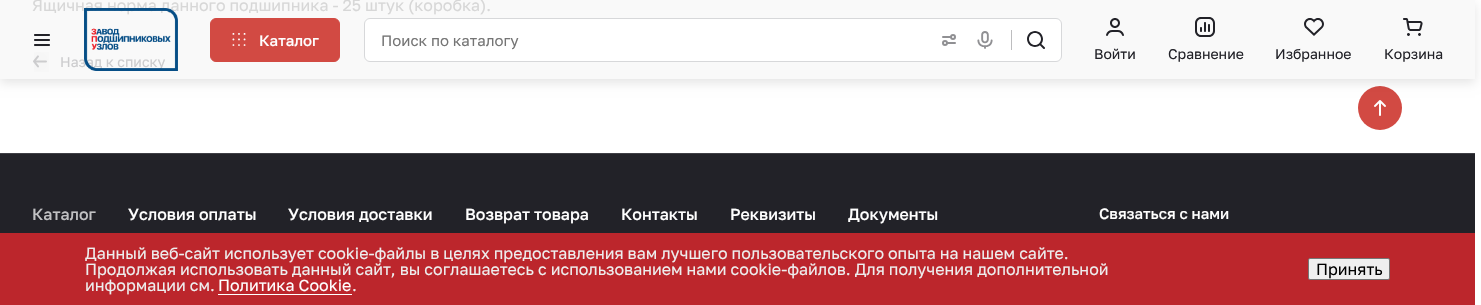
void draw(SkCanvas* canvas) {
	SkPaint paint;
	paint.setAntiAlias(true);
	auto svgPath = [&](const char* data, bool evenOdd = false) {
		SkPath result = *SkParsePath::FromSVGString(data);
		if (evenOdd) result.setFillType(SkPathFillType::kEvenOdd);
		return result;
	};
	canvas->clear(0xffffffff);
	paint.setColor(0xfff9f9f9);
	canvas->drawRect(SkRect::MakeXYWH(0, 0, 1475, 79), paint);
	SkFont f1(fontMgr->matchFamilyStyle("Golos Text", SkFontStyle::Normal()), 16);
	f1.setSubpixel(true);
	paint.setColor(0xffd7d7d7);
	canvas->drawString("Ящичная норма данного подшипника - 25 штук (коробка).", 32, 11, f1, paint);
	canvas->drawImageRect(SkImages::DeferredFromEncodedData(SkData::MakeFromFileName("img1.png")), SkRect::MakeXYWH(33, 52, 16, 20), SkSamplingOptions());
	SkFont f2(fontMgr->matchFamilyStyle("Golos Text", SkFontStyle::Normal()), 14);
	f2.setSubpixel(true);
	paint.setColor(0xffccccce);
	canvas->drawString("Назад к списку", 60, 67, f2, paint);
	paint.setColor(0xffd24a43);
	canvas->drawCircle(1380, 108, 22, paint);
	canvas->save();
	canvas->clipPath(svgPath("M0 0H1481V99H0ZM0 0H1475V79H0Z", true), true);
	paint.setColor(0x1a000000);
	paint.setMaskFilter(SkMaskFilter::MakeBlur(kNormal_SkBlurStyle, 5));
	canvas->drawRect(SkRect::MakeXYWH(0, 4, 1475, 79), paint);
	paint.setMaskFilter(nullptr);
	canvas->restore();
	canvas->drawImageRect(SkImages::DeferredFromEncodedData(SkData::MakeFromFileName("img2.png")), SkRect::MakeXYWH(34, 34, 16, 13), SkSamplingOptions());
	canvas->drawImageRect(SkImages::DeferredFromEncodedData(SkData::MakeFromFileName("img3.png")), SkRect::MakeXYWH(84, 8, 94, 63), SkSamplingOptions());
	paint.setColor(0xffd24a43);
	canvas->drawRoundRect(SkRect::MakeXYWH(210.5, 18.5, 129, 43), 5.5, 5.5, paint);
	paint.setStroke(true);
	paint.setStrokeWidth(1);
	canvas->drawRoundRect(SkRect::MakeXYWH(210.5, 18.5, 129, 43), 5.5, 5.5, paint);
	canvas->drawImageRect(SkImages::DeferredFromEncodedData(SkData::MakeFromFileName("img4.png")), SkRect::MakeXYWH(232, 33, 14, 13), SkSamplingOptions());
	SkFont f3(fontMgr->matchFamilyStyle("Golos Text", SkFontStyle(500, SkFontStyle::kNormal_Width, SkFontStyle::kUpright_Slant)), 15);
	f3.setSubpixel(true);
	paint.setStroke(false);
	paint.setColor(0xffffffff);
	canvas->drawString("Каталог", 259, 46, f3, paint);
	canvas->drawRoundRect(SkRect::MakeXYWH(364.5, 18.5, 697, 43), 5.5, 5.5, paint);
	paint.setStroke(true);
	paint.setColor(0xffd7d8da);
	canvas->drawRoundRect(SkRect::MakeXYWH(364.5, 18.5, 697, 43), 5.5, 5.5, paint);
	SkFont f4(fontMgr->matchFamilyStyle("Golos Text", SkFontStyle::Normal()), 15);
	f4.setSubpixel(true);
	paint.setStroke(false);
	paint.setColor(0xff757575);
	canvas->drawString("Поиск по каталогу", 381, 46, f4, paint);
	canvas->drawImageRect(SkImages::DeferredFromEncodedData(SkData::MakeFromFileName("img5.png")), SkRect::MakeXYWH(942, 34, 14, 12), SkSamplingOptions());
	canvas->drawImageRect(SkImages::DeferredFromEncodedData(SkData::MakeFromFileName("img6.png")), SkRect::MakeXYWH(977, 31, 16, 18), SkSamplingOptions());
	paint.setColor(0xffbdbdbf);
	canvas->drawRect(SkRect::MakeXYWH(1011, 30, 1, 20), paint);
	canvas->drawImageRect(SkImages::DeferredFromEncodedData(SkData::MakeFromFileName("img7.png")), SkRect::MakeXYWH(1027, 31, 18, 18), SkSamplingOptions());
	canvas->drawImageRect(SkImages::DeferredFromEncodedData(SkData::MakeFromFileName("img8.png")), SkRect::MakeXYWH(1106, 18, 18, 18), SkSamplingOptions());
	paint.setColor(0xff222228);
	canvas->drawString("Войти", 1094, 59, f2, paint);
	canvas->drawImageRect(SkImages::DeferredFromEncodedData(SkData::MakeFromFileName("img9.png")), SkRect::MakeXYWH(1195, 17, 20, 20), SkSamplingOptions());
	canvas->drawString("Сравнение", 1168, 59, f2, paint);
	canvas->drawImageRect(SkImages::DeferredFromEncodedData(SkData::MakeFromFileName("img10.png")), SkRect::MakeXYWH(1304, 18, 20, 18), SkSamplingOptions());
	canvas->drawString("Избранное", 1275, 59, f2, paint);
	canvas->drawImageRect(SkImages::DeferredFromEncodedData(SkData::MakeFromFileName("img11.png")), SkRect::MakeXYWH(1403, 18, 20, 18), SkSamplingOptions());
	canvas->drawString("Корзина", 1384, 59, f2, paint);
	canvas->drawRect(SkRect::MakeXYWH(0, 154, 1475, 79), paint);
	paint.setColor(0xff3f3f45);
	canvas->drawRect(SkRect::MakeXYWH(0, 153, 1475, 1), paint);
	SkFont f5(fontMgr->matchFamilyStyle("Golos Text", SkFontStyle(500, SkFontStyle::kNormal_Width, SkFontStyle::kUpright_Slant)), 16);
	f5.setSubpixel(true);
	paint.setColor(0xffc1c1c3);
	canvas->drawString("Каталог", 32, 220, f5, paint);
	paint.setColor(0xffffffff);
	canvas->drawString("Условия оплаты", 128, 220, f5, paint);
	canvas->drawString("Условия доставки", 288, 220, f5, paint);
	canvas->drawString("Возврат товара", 465, 220, f5, paint);
	canvas->drawString("Контакты", 621, 220, f5, paint);
	canvas->drawString("Реквизиты", 730, 220, f5, paint);
	canvas->drawString("Документы", 848, 220, f5, paint);
	canvas->drawString("Связаться с нами", 1099, 219, f3, paint);
	canvas->drawImageRect(SkImages::DeferredFromEncodedData(SkData::MakeFromFileName("img12.png")), SkRect::MakeXYWH(1374, 100, 12, 16), SkSamplingOptions());
	paint.setColor(0xffbc262c);
	canvas->drawRect(SkRect::MakeXYWH(0, 233, 1475, 72), paint);
	paint.setColor(0xffeeeeee);
	canvas->drawString("Данный веб-сайт использует cookie-файлы в целях предоставления вам лучшего пользовательского опыта на нашем сайте.", 85, 259, f1, paint);
	canvas->drawString("Продолжая использовать данный сайт, вы соглашаетесь с использованием нами cookie-файлов. Для получения дополнительной", 85, 275, f1, paint);
	canvas->drawString("информации см.", 85, 291, f1, paint);
	paint.setColor(0xffffffff);
	canvas->drawString("Политика Cookie", 218, 291, f1, paint);
	canvas->drawRect(SkRect::MakeXYWH(218, 294, 134, 1), paint);
	paint.setColor(0xffeeeeee);
	canvas->drawString(".", 352, 291, f1, paint);
	paint.setColor(0xffefefef);
	canvas->drawRoundRect(SkRect::MakeXYWH(1308.5, 258.5, 81, 21), 1.5, 1.5, paint);
	paint.setStroke(true);
	paint.setColor(0xff767676);
	canvas->drawRoundRect(SkRect::MakeXYWH(1308.5, 258.5, 81, 21), 1.5, 1.5, paint);
	paint.setStroke(false);
	paint.setColor(0xff000000);
	canvas->drawString("Принять", 1316, 275, f1, paint);
}
